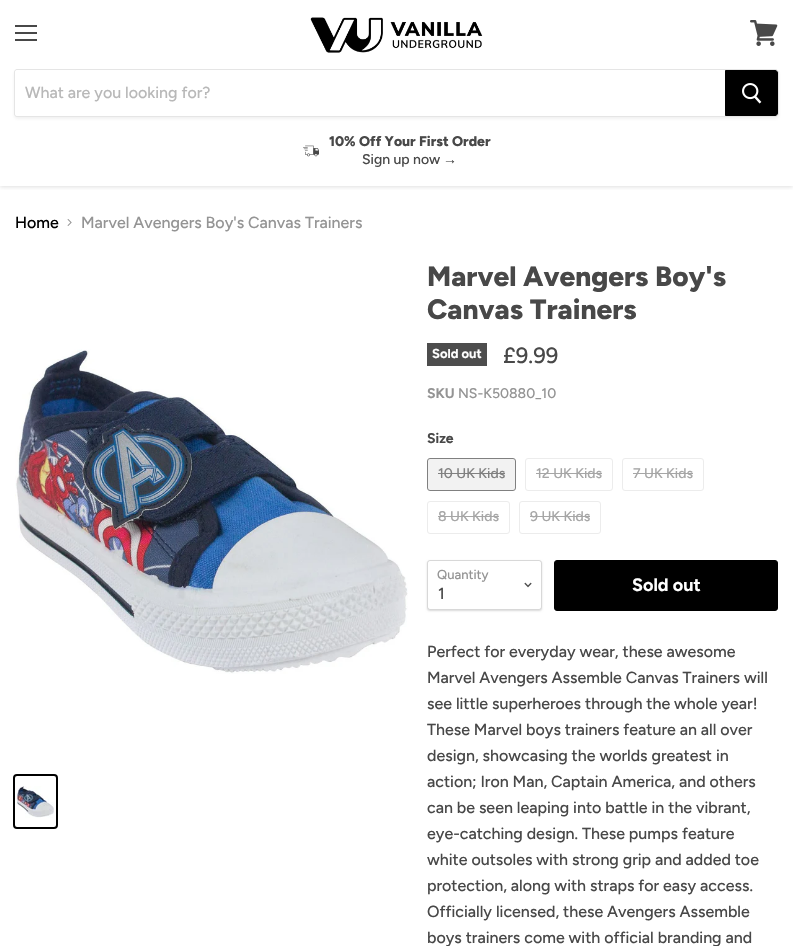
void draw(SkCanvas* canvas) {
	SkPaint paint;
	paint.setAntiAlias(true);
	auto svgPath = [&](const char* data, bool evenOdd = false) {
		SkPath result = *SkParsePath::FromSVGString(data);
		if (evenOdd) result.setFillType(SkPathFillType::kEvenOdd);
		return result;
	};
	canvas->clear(0xffffffff);
	canvas->save();
	canvas->clipRect(SkRect::MakeXYWH(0, 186, 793, 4));
	paint.setColor(0x407f7f7f);
	paint.setMaskFilter(SkMaskFilter::MakeBlur(kNormal_SkBlurStyle, 2));
	canvas->drawRect(SkRect::MakeXYWH(0, 1, 793, 186), paint);
	paint.setMaskFilter(nullptr);
	canvas->restore();
	paint.setColor(0xff484848);
	canvas->drawRect(SkRect::MakeXYWH(15, 25, 22, 2), paint);
	canvas->drawRect(SkRect::MakeXYWH(15, 32, 22, 2), paint);
	canvas->drawRect(SkRect::MakeXYWH(15, 39, 22, 2), paint);
	canvas->drawImageRect(SkImages::DeferredFromEncodedData(SkData::MakeFromFileName("img1.png")), SkRect::MakeXYWH(750, 20, 28, 26), SkSamplingOptions());
	canvas->drawImageRect(SkImages::DeferredFromEncodedData(SkData::MakeFromFileName("img2.png")), SkRect::MakeXYWH(310, 17, 173, 36), SkSamplingOptions());
	canvas->save();
	canvas->clipPath(svgPath("M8 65H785V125H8ZM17 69H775C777 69 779 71 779 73V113C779 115 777 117 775 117H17C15.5 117 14 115.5 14 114V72C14 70.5 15.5 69 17 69Z", true), true);
	paint.setColor(0x1c7f7f7f);
	paint.setMaskFilter(SkMaskFilter::MakeBlur(kNormal_SkBlurStyle, 1.5));
	canvas->drawRoundRect(SkRect::MakeXYWH(14, 71, 765, 48), 4, 4, paint);
	paint.setMaskFilter(nullptr);
	canvas->restore();
	paint.setStroke(true);
	paint.setStrokeWidth(1);
	paint.setColor(0x337f7f7f);
	canvas->drawPath(svgPath("M17 69.5H775C777 69.5 778.5 71 778.5 73V113C778.5 115 777 116.5 775 116.5H17C15.5 116.5 14.5 115.5 14.5 114V72C14.5 70.5 15.5 69.5 17 69.5Z"), paint);
	SkFont f1(fontMgr->matchFamilyStyle("Figtree", SkFontStyle(500, SkFontStyle::kNormal_Width, SkFontStyle::kUpright_Slant)), 16);
	f1.setSubpixel(true);
	paint.setStroke(false);
	paint.setColor(0xffb8b8b8);
	canvas->drawString("What are you looking for?", 25, 98, f1, paint);
	paint.setColor(0xff000000);
	canvas->drawPath(svgPath("M725.5 70.5H775C776.5 70.5 777.5 71.5 777.5 73V113C777.5 114.5 776.5 115.5 775 115.5H725.5Z"), paint);
	paint.setStroke(true);
	canvas->drawPath(svgPath("M725.5 70.5H775C776.5 70.5 777.5 71.5 777.5 73V113C777.5 114.5 776.5 115.5 775 115.5H725.5Z"), paint);
	canvas->drawImageRect(SkImages::DeferredFromEncodedData(SkData::MakeFromFileName("img3.png")), SkRect::MakeXYWH(742, 83, 20, 21), SkSamplingOptions());
	canvas->drawImageRect(SkImages::DeferredFromEncodedData(SkData::MakeFromFileName("img4.png")), SkRect::MakeXYWH(303, 145, 16, 12), SkSamplingOptions());
	SkFont f2(fontMgr->matchFamilyStyle("Figtree", SkFontStyle(800, SkFontStyle::kNormal_Width, SkFontStyle::kUpright_Slant)), 14);
	f2.setSubpixel(true);
	paint.setStroke(false);
	paint.setColor(0xff484848);
	canvas->drawString("10% Off Your First Order", 329, 146, f2, paint);
	SkFont f3(fontMgr->matchFamilyStyle("Figtree", SkFontStyle(500, SkFontStyle::kNormal_Width, SkFontStyle::kUpright_Slant)), 14);
	f3.setSubpixel(true);
	canvas->drawString("Sign up now", 362, 164, f3, paint);
	SkFont f4(fontMgr->matchFamilyStyle("Liberation Sans", SkFontStyle::Normal()), 14);
	f4.setSubpixel(true);
	canvas->drawString("→", 443, 164, f4, paint);
	paint.setColor(0xff000000);
	canvas->drawString("Home", 15, 228, f1, paint);
	canvas->drawImageRect(SkImages::DeferredFromEncodedData(SkData::MakeFromFileName("img5.png")), SkRect::MakeXYWH(67, 219, 5, 7), SkSamplingOptions());
	paint.setColor(0xff949494);
	canvas->drawString("Marvel Avengers Boy's Canvas Trainers", 81, 228, f1, paint);
	canvas->drawImageRect(SkImages::DeferredFromEncodedData(SkData::MakeFromFileName("img6.png")), SkRect::MakeXYWH(15, 349, 393, 325), SkSamplingOptions());
	paint.setStroke(true);
	paint.setStrokeWidth(2);
	paint.setColor(0xff000000);
	canvas->drawRoundRect(SkRect::MakeXYWH(14, 775, 43, 53), 3, 3, paint);
	canvas->drawImageRect(SkImages::DeferredFromEncodedData(SkData::MakeFromFileName("img7.png")), SkRect::MakeXYWH(17, 786, 37, 32), SkSamplingOptions());
	SkFont f5(fontMgr->matchFamilyStyle("Figtree", SkFontStyle(800, SkFontStyle::kNormal_Width, SkFontStyle::kUpright_Slant)), 28);
	f5.setSubpixel(true);
	paint.setStroke(false);
	paint.setColor(0xff484848);
	canvas->drawString("Marvel Avengers Boy's", 427, 286, f5, paint);
	canvas->drawString("Canvas Trainers", 427, 319, f5, paint);
	paint.setColor(0xff4d4d4d);
	canvas->drawRect(SkRect::MakeXYWH(427, 343, 60, 23), paint);
	SkFont f6(fontMgr->matchFamilyStyle("Figtree", SkFontStyle::Bold()), 13);
	f6.setSubpixel(true);
	paint.setColor(0xffffffff);
	canvas->drawString("Sold out", 432, 358, f6, paint);
	SkFont f7(fontMgr->matchFamilyStyle("Figtree", SkFontStyle(500, SkFontStyle::kNormal_Width, SkFontStyle::kUpright_Slant)), 22);
	f7.setSubpixel(true);
	paint.setColor(0xff484848);
	canvas->drawString("£9.99", 503, 363, f7, paint);
	SkFont f8(fontMgr->matchFamilyStyle("Figtree", SkFontStyle::Bold()), 14);
	f8.setSubpixel(true);
	paint.setColor(0xff949494);
	canvas->drawString("SKU", 427, 398, f8, paint);
	canvas->drawString("NS-K50880_10", 458, 398, f3, paint);
	paint.setColor(0xff484848);
	canvas->drawString("Size", 427, 443, f8, paint);
	paint.setColor(0xfff2f2f2);
	canvas->drawRoundRect(SkRect::MakeXYWH(427.5, 458.5, 88, 32), 2.5, 2.5, paint);
	paint.setStroke(true);
	paint.setStrokeWidth(1);
	paint.setColor(0xff808080);
	canvas->drawRoundRect(SkRect::MakeXYWH(427.5, 458.5, 88, 32), 2.5, 2.5, paint);
	paint.setStroke(false);
	canvas->drawString("10 UK Kids", 438, 478, f3, paint);
	canvas->drawRect(SkRect::MakeXYWH(438, 473, 67, 1), paint);
	paint.setStroke(true);
	paint.setColor(0xffececec);
	canvas->drawRoundRect(SkRect::MakeXYWH(525.5, 458.5, 87, 32), 2.5, 2.5, paint);
	paint.setStroke(false);
	paint.setColor(0xffa6a6a6);
	canvas->drawString("12 UK Kids", 536, 478, f3, paint);
	canvas->drawRect(SkRect::MakeXYWH(536, 473, 66, 1), paint);
	paint.setStroke(true);
	paint.setColor(0xffececec);
	canvas->drawRoundRect(SkRect::MakeXYWH(622.5, 458.5, 81, 32), 2.5, 2.5, paint);
	paint.setStroke(false);
	paint.setColor(0xffa6a6a6);
	canvas->drawString("7 UK Kids", 633, 478, f3, paint);
	canvas->drawRect(SkRect::MakeXYWH(633, 473, 60, 1), paint);
	paint.setStroke(true);
	paint.setColor(0xffececec);
	canvas->drawRoundRect(SkRect::MakeXYWH(427.5, 501.5, 82, 32), 2.5, 2.5, paint);
	paint.setStroke(false);
	paint.setColor(0xffa6a6a6);
	canvas->drawString("8 UK Kids", 438, 521, f3, paint);
	canvas->drawRect(SkRect::MakeXYWH(438, 516, 61, 1), paint);
	paint.setStroke(true);
	paint.setColor(0xffececec);
	canvas->drawRoundRect(SkRect::MakeXYWH(519.5, 501.5, 81, 32), 2.5, 2.5, paint);
	paint.setStroke(false);
	paint.setColor(0xffa6a6a6);
	canvas->drawString("9 UK Kids", 530, 521, f3, paint);
	canvas->drawRect(SkRect::MakeXYWH(530, 516, 60, 1), paint);
	canvas->save();
	canvas->clipPath(svgPath("M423 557H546V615H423ZM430 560H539C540.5 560 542 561.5 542 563V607C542 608.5 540.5 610 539 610H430C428.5 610 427 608.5 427 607V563C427 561.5 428.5 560 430 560Z", true), true);
	paint.setColor(0x26000000);
	paint.setMaskFilter(SkMaskFilter::MakeBlur(kNormal_SkBlurStyle, 1));
	canvas->drawRoundRect(SkRect::MakeXYWH(427, 561, 115, 50), 3, 3, paint);
	paint.setMaskFilter(nullptr);
	canvas->restore();
	paint.setStroke(true);
	paint.setColor(0x4d7f7f7f);
	canvas->drawRoundRect(SkRect::MakeXYWH(427.5, 560.5, 114, 49), 2.5, 2.5, paint);
	SkFont f9(fontMgr->matchFamilyStyle("Figtree", SkFontStyle(500, SkFontStyle::kNormal_Width, SkFontStyle::kUpright_Slant)), 13);
	f9.setSubpixel(true);
	paint.setStroke(false);
	paint.setColor(0xff949494);
	canvas->drawString("Quantity", 437, 579, f9, paint);
	canvas->drawImageRect(SkImages::DeferredFromEncodedData(SkData::MakeFromFileName("img8.png")), SkRect::MakeXYWH(524, 582, 8, 6), SkSamplingOptions());
	paint.setColor(0xff484848);
	canvas->drawString("1", 438, 599, f1, paint);
	paint.setColor(0xff000000);
	canvas->drawRoundRect(SkRect::MakeXYWH(554.5, 560.5, 223, 50), 2.5, 2.5, paint);
	paint.setStroke(true);
	canvas->drawRoundRect(SkRect::MakeXYWH(554.5, 560.5, 223, 50), 2.5, 2.5, paint);
	SkFont f10(fontMgr->matchFamilyStyle("Figtree", SkFontStyle::Bold()), 18);
	f10.setSubpixel(true);
	paint.setStroke(false);
	paint.setColor(0xffffffff);
	canvas->drawString("Sold out", 632, 591, f10, paint);
	paint.setColor(0xff484848);
	canvas->drawString("Perfect for everyday wear, these awesome", 427, 657, f1, paint);
	canvas->drawString("Marvel Avengers Assemble Canvas Trainers will", 427, 683, f1, paint);
	canvas->drawString("see little superheroes through the whole year!", 427, 709, f1, paint);
	canvas->drawString("These Marvel boys trainers feature an all over", 427, 735, f1, paint);
	canvas->drawString("design, showcasing the worlds greatest in", 427, 761, f1, paint);
	canvas->drawString("action; Iron Man, Captain America, and others", 427, 787, f1, paint);
	canvas->drawString("can be seen leaping into battle in the vibrant,", 427, 813, f1, paint);
	canvas->drawString("eye-catching design. These pumps feature", 427, 839, f1, paint);
	canvas->drawString("white outsoles with strong grip and added toe", 427, 865, f1, paint);
	canvas->drawString("protection, along with straps for easy access.", 427, 891, f1, paint);
	canvas->drawString("Officially licensed, these Avengers Assemble", 427, 917, f1, paint);
	canvas->drawString("boys trainers come with official branding and", 427, 943, f1, paint);
}
